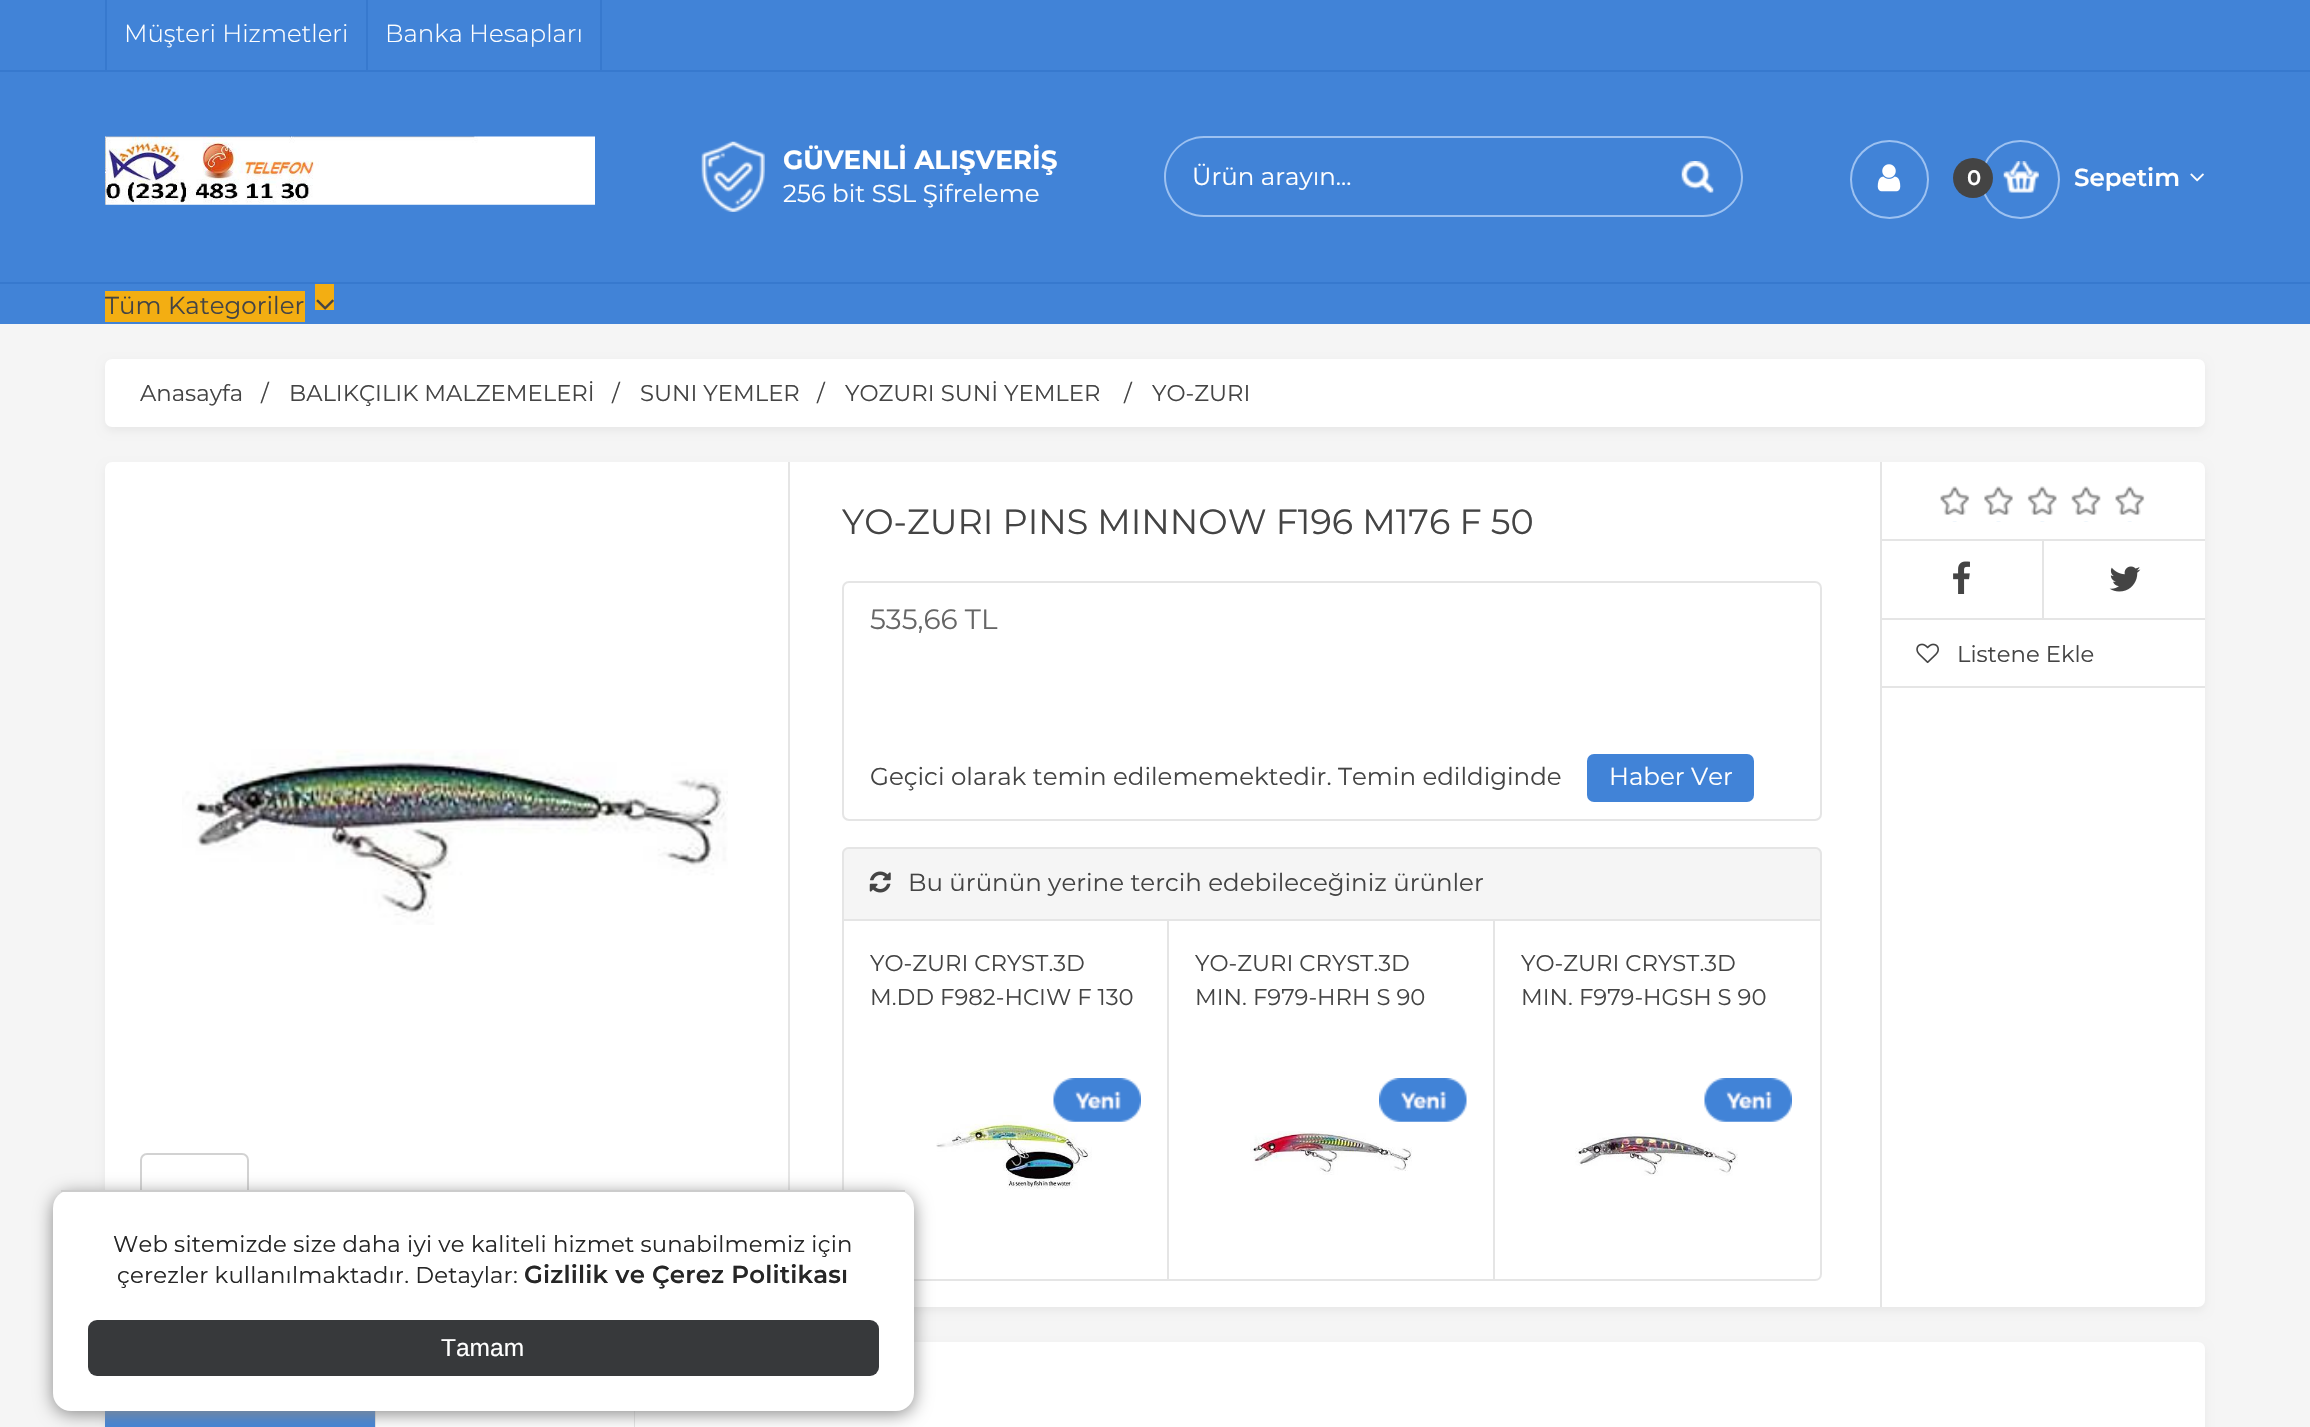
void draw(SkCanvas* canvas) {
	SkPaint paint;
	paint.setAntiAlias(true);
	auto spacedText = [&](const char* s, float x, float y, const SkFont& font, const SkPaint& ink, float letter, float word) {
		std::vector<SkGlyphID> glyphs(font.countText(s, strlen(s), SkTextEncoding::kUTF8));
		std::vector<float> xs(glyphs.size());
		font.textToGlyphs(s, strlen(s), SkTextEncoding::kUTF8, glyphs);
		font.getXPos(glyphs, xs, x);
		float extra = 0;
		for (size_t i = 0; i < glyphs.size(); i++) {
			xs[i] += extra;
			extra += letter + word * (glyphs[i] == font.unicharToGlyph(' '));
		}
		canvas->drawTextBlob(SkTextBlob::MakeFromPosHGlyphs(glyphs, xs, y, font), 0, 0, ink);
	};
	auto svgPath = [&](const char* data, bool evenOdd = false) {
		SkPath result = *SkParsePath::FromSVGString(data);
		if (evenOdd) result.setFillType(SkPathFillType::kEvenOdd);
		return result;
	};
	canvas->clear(0xfff5f5f5);
	paint.setColor(0xff4183d7);
	canvas->drawRect(SkRect::MakeXYWH(0, 0, 2310, 324), paint);
	paint.setColor(0xff3779ce);
	canvas->drawRect(SkRect::MakeXYWH(0, 70, 2310, 2), paint);
	canvas->drawRect(SkRect::MakeXYWH(105, 0, 2, 70), paint);
	SkFont f1(fontMgr->matchFamilyStyle("Montserrat", SkFontStyle(300, SkFontStyle::kNormal_Width, SkFontStyle::kUpright_Slant)), 24.5);
	f1.setSubpixel(true);
	paint.setColor(0xffffffff);
	canvas->drawString("Müşteri Hizmetleri", 124, 42, f1, paint);
	paint.setColor(0xff3779ce);
	canvas->drawRect(SkRect::MakeXYWH(600, 0, 2, 70), paint);
	canvas->drawRect(SkRect::MakeXYWH(366, 0, 2, 70), paint);
	paint.setColor(0xffffffff);
	canvas->drawString("Banka Hesapları", 385, 42, f1, paint);
	canvas->drawImageRect(SkImages::DeferredFromEncodedData(SkData::MakeFromFileName("img1.png")), SkRect::MakeXYWH(105, 136, 490, 69), SkSamplingOptions());
	canvas->drawImageRect(SkImages::DeferredFromEncodedData(SkData::MakeFromFileName("img2.png")), SkRect::MakeXYWH(701, 141, 64, 71), SkSamplingOptions());
	SkFont f2(fontMgr->matchFamilyStyle("Montserrat", SkFontStyle::Bold()), 26.25);
	f2.setSubpixel(true);
	canvas->drawString("GÜVENLİ ALIŞVERİŞ", 783, 169, f2, paint);
	SkFont f3(fontMgr->matchFamilyStyle("Montserrat", SkFontStyle::Normal()), 24.5);
	f3.setSubpixel(true);
	canvas->drawString("256 bit SSL Şifreleme", 783, 202, f3, paint);
	paint.setColor(0xff9cc1f1);
	canvas->drawPath(svgPath("M1204 136H1654V217H1204C1182 217 1164 199 1164 177C1164 155 1182 136 1204 136ZM1204 138H1654V215H1204C1183 215 1166 198 1166 177C1166 155 1183 138 1204 138Z", true), paint);
	paint.setColor(0xffffffff);
	canvas->drawString("Ürün arayın...", 1192, 185, f3, paint);
	canvas->drawImageRect(SkImages::DeferredFromEncodedData(SkData::MakeFromFileName("img3.png")), SkRect::MakeXYWH(1681, 161, 33, 32), SkSamplingOptions());
	paint.setColor(0xff9cc1f1);
	canvas->drawPath(svgPath("M1654 136H1703C1725 136 1743 155 1743 177C1743 199 1725 217 1703 217H1654ZM1654 138H1703C1724 138 1741 155 1741 177C1741 198 1724 215 1703 215H1654Z", true), paint);
	paint.setStroke(true);
	paint.setStrokeWidth(2);
	canvas->drawCircle(1889.5, 179.5, 38.5, paint);
	canvas->drawImageRect(SkImages::DeferredFromEncodedData(SkData::MakeFromFileName("img4.png")), SkRect::MakeXYWH(1877, 164, 24, 28), SkSamplingOptions());
	canvas->drawImageRect(SkImages::DeferredFromEncodedData(SkData::MakeFromFileName("img5.png")), SkRect::MakeXYWH(2003, 161, 36, 32), SkSamplingOptions());
	canvas->drawCircle(2020.5, 179.5, 38.5, paint);
	paint.setStroke(false);
	paint.setColor(0xff444444);
	canvas->drawCircle(1973, 178, 20, paint);
	SkFont f4(fontMgr->matchFamilyStyle("Montserrat", SkFontStyle(600, SkFontStyle::kNormal_Width, SkFontStyle::kUpright_Slant)), 21);
	f4.setSubpixel(true);
	paint.setColor(0xffffffff);
	canvas->drawString("0", 1967, 185, f4, paint);
	SkFont f5(fontMgr->matchFamilyStyle("Montserrat", SkFontStyle(600, SkFontStyle::kNormal_Width, SkFontStyle::kUpright_Slant)), 24.5);
	f5.setSubpixel(true);
	canvas->drawString("Sepetim", 2074, 186, f5, paint);
	canvas->drawImageRect(SkImages::DeferredFromEncodedData(SkData::MakeFromFileName("img6.png")), SkRect::MakeXYWH(2190, 173, 14, 9), SkSamplingOptions());
	paint.setColor(0xff3779ce);
	canvas->drawRect(SkRect::MakeXYWH(0, 282, 2310, 2), paint);
	paint.setColor(0xfff3ae12);
	canvas->drawRect(SkRect::MakeXYWH(105, 291, 200, 31), paint);
	canvas->drawRect(SkRect::MakeXYWH(315, 284, 19, 26), paint);
	paint.setColor(0xff444444);
	canvas->drawString("Tüm Kategoriler", 105, 314, f3, paint);
	canvas->drawImageRect(SkImages::DeferredFromEncodedData(SkData::MakeFromFileName("img7.png")), SkRect::MakeXYWH(316, 299, 18, 11), SkSamplingOptions());
	paint.setColor(0x0d000000);
	paint.setMaskFilter(SkMaskFilter::MakeBlur(kNormal_SkBlurStyle, 4.5));
	canvas->drawRoundRect(SkRect::MakeXYWH(105, 466, 2100, 845), 7, 7, paint);
	paint.setMaskFilter(nullptr);
	paint.setColor(0xffffffff);
	canvas->drawRoundRect(SkRect::MakeXYWH(105, 462, 2100, 845), 7, 7, paint);
	paint.setColor(0xffe5e5e5);
	canvas->drawRect(SkRect::MakeXYWH(788, 462, 2, 728), paint);
	paint.setStroke(true);
	paint.setColor(0xffd2d2d2);
	canvas->drawRoundRect(SkRect::MakeXYWH(141, 1154, 107, 107), 6, 6, paint);
	paint.setColor(0xffe5e5e5);
	canvas->drawPath(svgPath("M843 920H1821V1274C1821 1277.5 1818.5 1280 1815 1280H849C845.5 1280 843 1277.5 843 1274Z"), paint);
	canvas->drawImageRect(SkImages::DeferredFromEncodedData(SkData::MakeFromFileName("img11.png")), SkRect::MakeXYWH(936, 1115, 156, 75), SkSamplingOptions());
	paint.setStroke(false);
	paint.setColor(0x0d000000);
	paint.setMaskFilter(SkMaskFilter::MakeBlur(kNormal_SkBlurStyle, 4.5));
	canvas->drawRoundRect(SkRect::MakeXYWH(105, 1346, 2100, 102), 7, 7, paint);
	paint.setMaskFilter(nullptr);
	paint.setColor(0xffffffff);
	canvas->drawPath(svgPath("M112 1342H2198C2202 1342 2205 1345 2205 1349V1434H105V1349C105 1345 108 1342 112 1342Z"), paint);
	paint.setColor(0xff4183d7);
	canvas->drawRect(SkRect::MakeXYWH(105, 1411, 270, 16), paint);
	paint.setColor(0xffe5e5e5);
	canvas->drawRect(SkRect::MakeXYWH(375, 1411, 1, 16), paint);
	canvas->drawRect(SkRect::MakeXYWH(634, 1411, 1, 16), paint);
	paint.setColor(0xff888888);
	paint.setMaskFilter(SkMaskFilter::MakeBlur(kNormal_SkBlurStyle, 9));
	canvas->drawRoundRect(SkRect::MakeXYWH(53, 1194, 861, 220), 18, 18, paint);
	paint.setMaskFilter(nullptr);
	paint.setColor(0xffffffff);
	canvas->drawRoundRect(SkRect::MakeXYWH(53, 1190, 861, 221), 18, 18, paint);
	paint.setColor(0xffcccccc);
	canvas->drawRect(SkRect::MakeXYWH(61, 1190, 844, 2), paint);
	SkFont f6(fontMgr->matchFamilyStyle("Montserrat", SkFontStyle::Normal()), 22.75);
	f6.setSubpixel(true);
	paint.setColor(0xff262626);
	spacedText("Web sitemizde size daha iyi ve kaliteli hizmet sunabilmemiz için", 113, 1252, f6, paint, 0.18, 0);
	spacedText("çerezler kullanılmaktadır. Detaylar:", 117, 1283, f6, paint, 0.18, 0);
	spacedText("Gizlilik ve Çerez Politikası", 524, 1283, f5, paint, 0.18, 0);
	paint.setColor(0xff37393b);
	canvas->drawRoundRect(SkRect::MakeXYWH(88, 1320, 791, 56), 9, 9, paint);
	SkFont f7(fontMgr->matchFamilyStyle("Liberation Sans", SkFontStyle::Normal()), 24.5);
	f7.setSubpixel(true);
	paint.setColor(0xffffffff);
	canvas->drawString("Tamam", 441, 1356, f7, paint);
	paint.setColor(0x0d000000);
	paint.setMaskFilter(SkMaskFilter::MakeBlur(kNormal_SkBlurStyle, 4.5));
	canvas->drawRoundRect(SkRect::MakeXYWH(105, 362, 2100, 69), 7, 7, paint);
	paint.setMaskFilter(nullptr);
	paint.setColor(0xffffffff);
	canvas->drawRoundRect(SkRect::MakeXYWH(105, 359, 2100, 68), 7, 7, paint);
	paint.setColor(0xff444444);
	canvas->drawString("Anasayfa", 140, 401, f6, paint);
	canvas->drawString("/", 261, 401, f6, paint);
	canvas->drawString("BALIKÇILIK MALZEMELERİ", 289, 401, f6, paint);
	canvas->drawString("/", 612, 401, f6, paint);
	canvas->drawString("SUNI YEMLER", 640, 401, f6, paint);
	canvas->drawString("/", 817, 401, f6, paint);
	canvas->drawString("YOZURI SUNİ YEMLER", 845, 401, f6, paint);
	canvas->drawString("/", 1124, 401, f6, paint);
	canvas->drawString("YO-ZURI", 1152, 401, f6, paint);
	canvas->drawImageRect(SkImages::DeferredFromEncodedData(SkData::MakeFromFileName("img8.png")), SkRect::MakeXYWH(182, 749, 546, 176), SkSamplingOptions());
	SkFont f8(fontMgr->matchFamilyStyle("Montserrat", SkFontStyle::Normal()), 35);
	f8.setSubpixel(true);
	canvas->drawString("YO-ZURI PINS MINNOW F196 M176 F 50", 842, 534, f8, paint);
	paint.setStroke(true);
	paint.setColor(0xffe5e5e5);
	canvas->drawRoundRect(SkRect::MakeXYWH(843, 582, 978, 238), 6, 6, paint);
	SkFont f9(fontMgr->matchFamilyStyle("Montserrat", SkFontStyle::Normal()), 28);
	f9.setSubpixel(true);
	paint.setStroke(false);
	paint.setColor(0xff666666);
	canvas->drawString("535,66 TL", 870, 629, f9, paint);
	paint.setColor(0xff444444);
	canvas->drawString("Geçici olarak temin edilememektedir. Temin edildiginde", 870, 785, f3, paint);
	paint.setColor(0xff4183d7);
	canvas->drawRoundRect(SkRect::MakeXYWH(1587, 754, 167, 48), 7, 7, paint);
	paint.setColor(0xffffffff);
	canvas->drawString("Haber Ver", 1609, 785, f3, paint);
	paint.setColor(0xfff5f5f5);
	canvas->drawPath(svgPath("M849 847H1815C1819 847 1822 850 1822 854V919H842V854C842 850 845 847 849 847Z"), paint);
	paint.setColor(0xffe5e5e5);
	canvas->drawPath(svgPath("M849 847H1815C1819 847 1822 850 1822 854V919H842V854C842 850 845 847 849 847ZM849 849H1815C1818 849 1820 851 1820 854V919H844V854C844 851 846 849 849 849Z", true), paint);
	canvas->drawImageRect(SkImages::DeferredFromEncodedData(SkData::MakeFromFileName("img9.png")), SkRect::MakeXYWH(869, 871, 22, 22), SkSamplingOptions());
	paint.setColor(0xff444444);
	canvas->drawString("Bu ürünün yerine tercih edebileceğiniz ürünler", 908, 891, f3, paint);
	paint.setColor(0xffe5e5e5);
	canvas->drawRect(SkRect::MakeXYWH(1167, 921, 2, 358), paint);
	paint.setColor(0xff444444);
	canvas->drawString("YO-ZURI CRYST.3D", 870, 971, f6, paint);
	canvas->drawString("M.DD F982-HCIW F 130", 870, 1005, f6, paint);
	canvas->drawImageRect(SkImages::DeferredFromEncodedData(SkData::MakeFromFileName("img10.png")), SkRect::MakeXYWH(1053, 1078, 88, 44), SkSamplingOptions());
	paint.setColor(0xffe5e5e5);
	canvas->drawRect(SkRect::MakeXYWH(1493, 921, 2, 358), paint);
	paint.setColor(0xff444444);
	canvas->drawString("YO-ZURI CRYST.3D", 1195, 971, f6, paint);
	canvas->drawString("MIN. F979-HRH S 90", 1195, 1005, f6, paint);
	canvas->drawImageRect(SkImages::DeferredFromEncodedData(SkData::MakeFromFileName("img12.png")), SkRect::MakeXYWH(1379, 1078, 88, 44), SkSamplingOptions());
	canvas->drawImageRect(SkImages::DeferredFromEncodedData(SkData::MakeFromFileName("img13.png")), SkRect::MakeXYWH(1250, 1131, 162, 44), SkSamplingOptions());
	canvas->drawString("YO-ZURI CRYST.3D", 1521, 971, f6, paint);
	canvas->drawString("MIN. F979-HGSH S 90", 1521, 1005, f6, paint);
	canvas->drawImageRect(SkImages::DeferredFromEncodedData(SkData::MakeFromFileName("img14.png")), SkRect::MakeXYWH(1704, 1078, 88, 44), SkSamplingOptions());
	canvas->drawImageRect(SkImages::DeferredFromEncodedData(SkData::MakeFromFileName("img15.png")), SkRect::MakeXYWH(1575, 1133, 163, 43), SkSamplingOptions());
	paint.setColor(0xffe5e5e5);
	canvas->drawRect(SkRect::MakeXYWH(1880, 462, 2, 845), paint);
	canvas->drawRect(SkRect::MakeXYWH(1881, 539, 324, 2), paint);
	canvas->drawImageRect(SkImages::DeferredFromEncodedData(SkData::MakeFromFileName("img16.png")), SkRect::MakeXYWH(1940, 486, 205, 36), SkSamplingOptions());
	canvas->drawRect(SkRect::MakeXYWH(1881, 618, 324, 2), paint);
	canvas->drawRect(SkRect::MakeXYWH(2042, 541, 2, 77), paint);
	canvas->drawImageRect(SkImages::DeferredFromEncodedData(SkData::MakeFromFileName("img17.png")), SkRect::MakeXYWH(1953, 561, 17, 33), SkSamplingOptions());
	canvas->drawImageRect(SkImages::DeferredFromEncodedData(SkData::MakeFromFileName("img18.png")), SkRect::MakeXYWH(2109, 566, 32, 26), SkSamplingOptions());
	canvas->drawRect(SkRect::MakeXYWH(1881, 686, 324, 2), paint);
	canvas->drawImageRect(SkImages::DeferredFromEncodedData(SkData::MakeFromFileName("img19.png")), SkRect::MakeXYWH(1916, 643, 23, 21), SkSamplingOptions());
	paint.setColor(0xff444444);
	canvas->drawString("Listene Ekle", 1957, 662, f6, paint);
}
